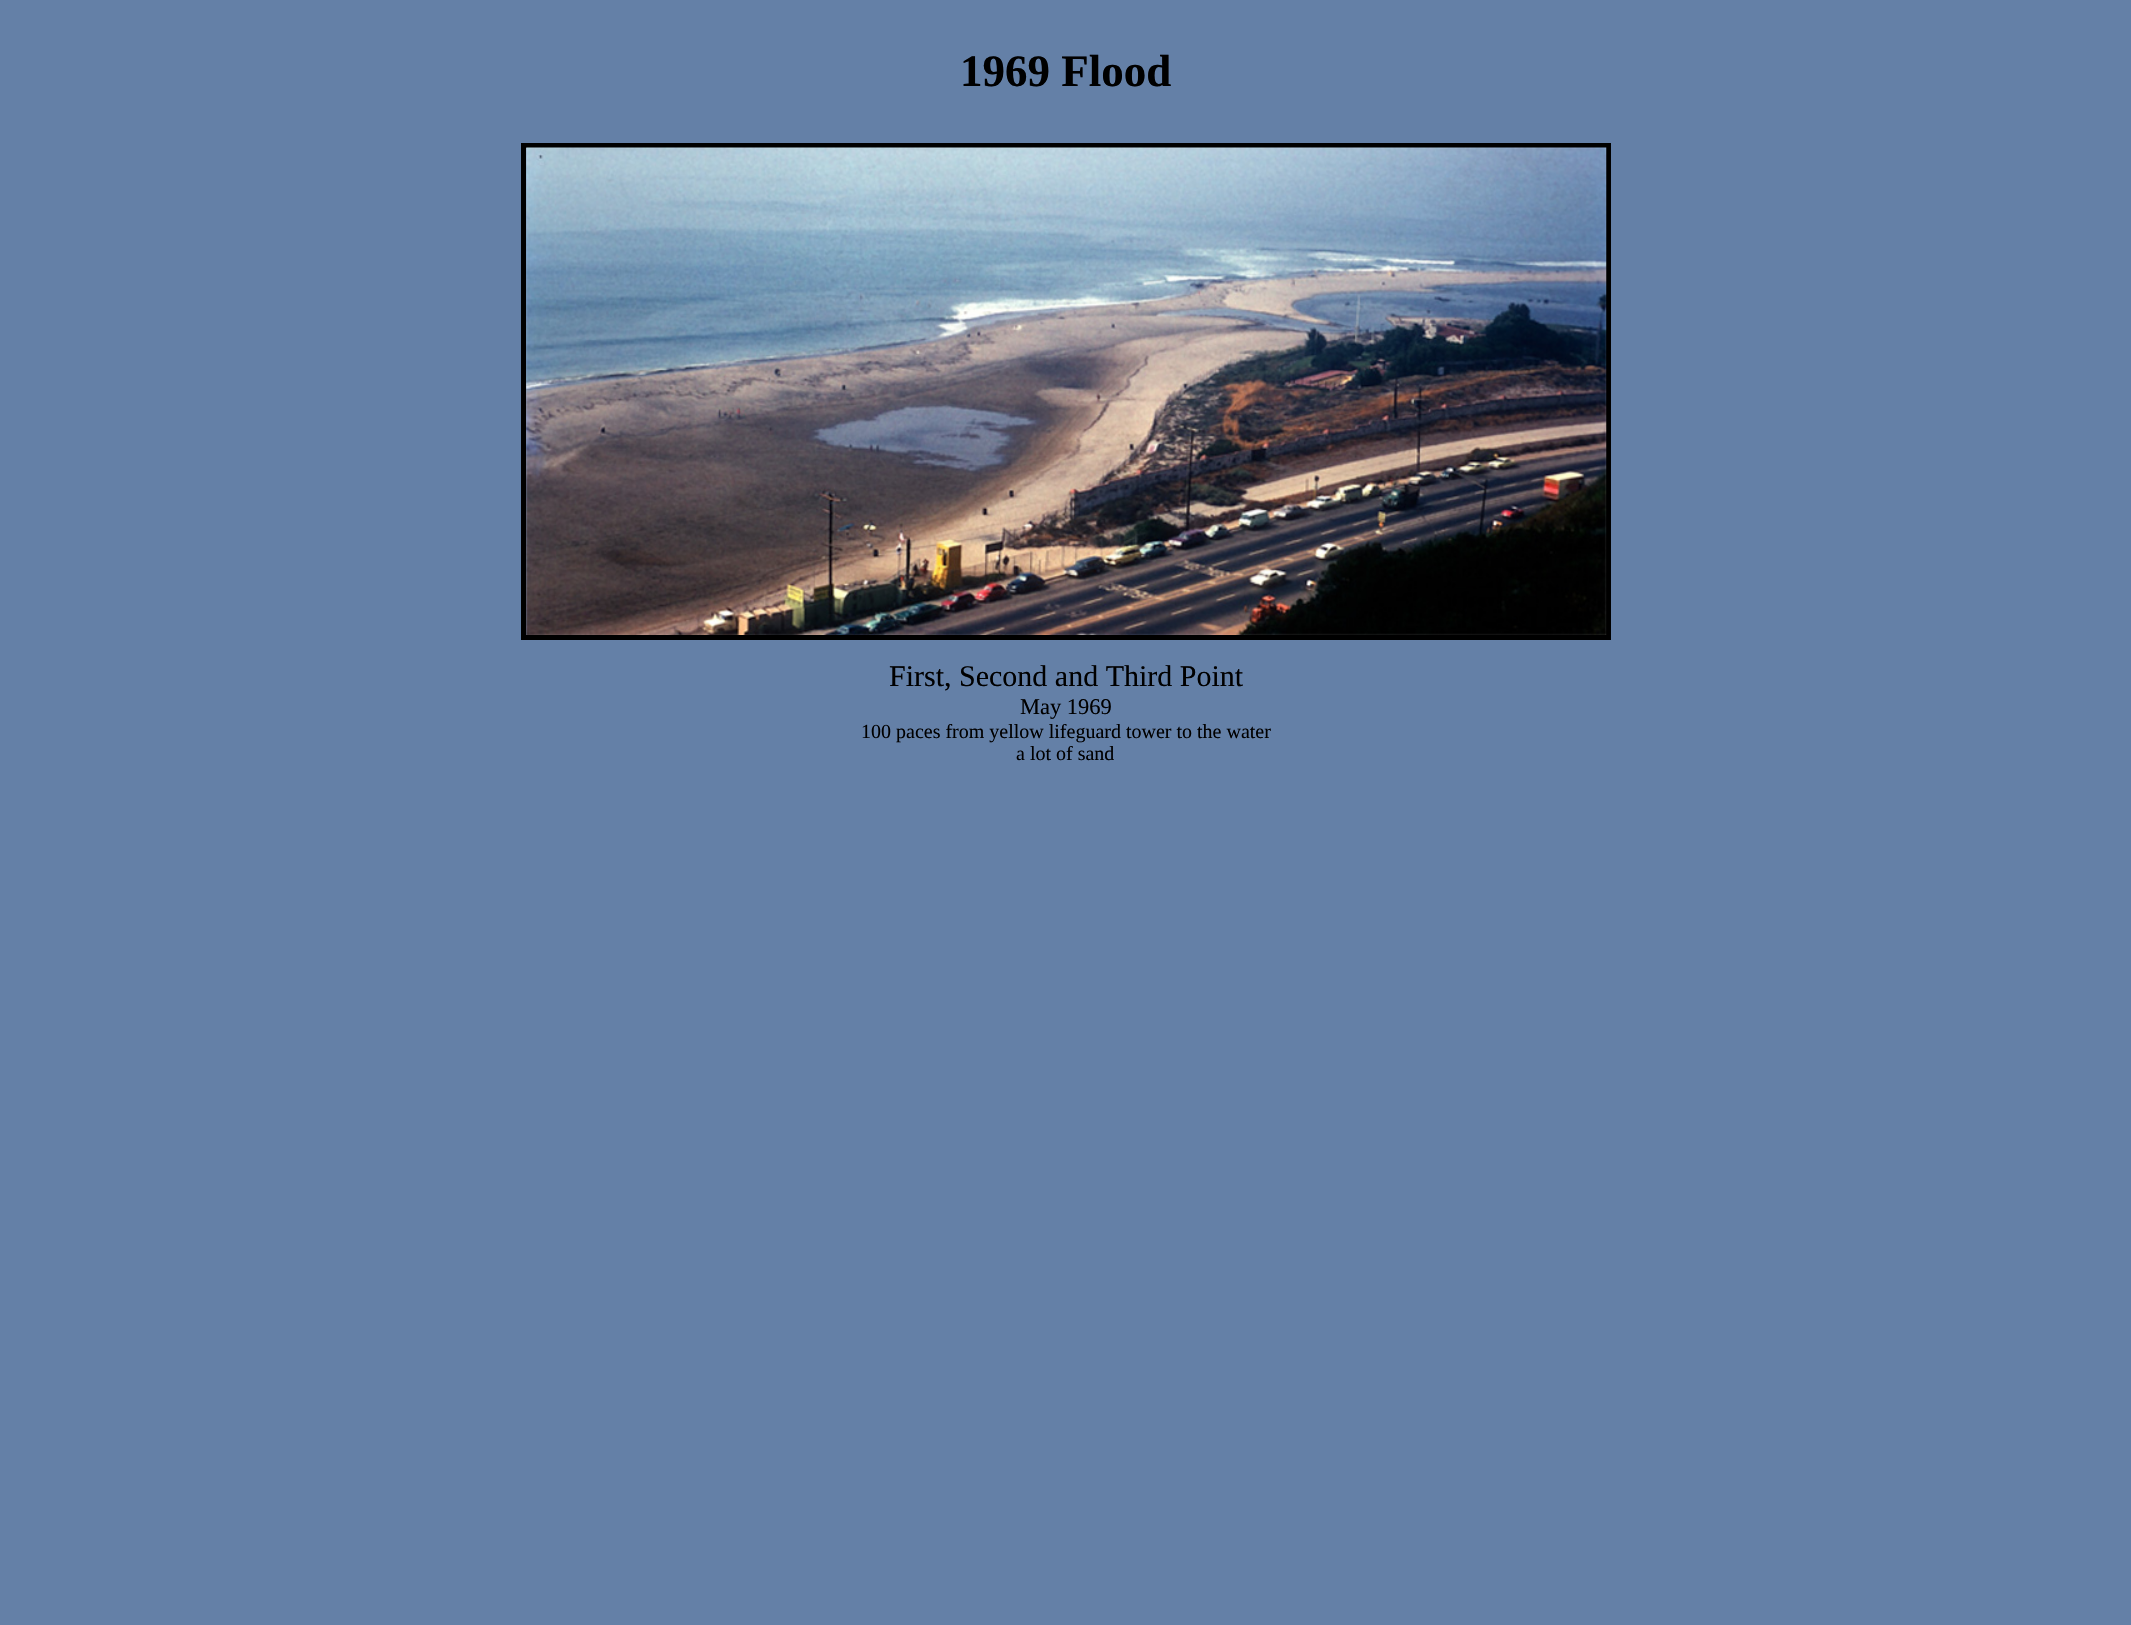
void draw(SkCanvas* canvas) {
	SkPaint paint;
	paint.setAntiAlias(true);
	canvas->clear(0xff6480a7);
	SkFont f1(fontMgr->matchFamilyStyle("Liberation Serif", SkFontStyle::Bold()), 45);
	f1.setSubpixel(true);
	paint.setColor(0xff000000);
	canvas->drawString("1969 Flood", 960, 86, f1, paint);
	paint.setStroke(true);
	paint.setStrokeWidth(5);
	canvas->drawRect(SkRect::MakeXYWH(523.5, 145.5, 1085, 492), paint);
	canvas->drawImageRect(SkImages::DeferredFromEncodedData(SkData::MakeFromFileName("img1.png")), SkRect::MakeXYWH(526, 147, 1081, 488), SkSamplingOptions());
	SkFont f2(fontMgr->matchFamilyStyle("Liberation Serif", SkFontStyle::Normal()), 30);
	f2.setSubpixel(true);
	paint.setStroke(false);
	canvas->drawString("First, Second and Third Point", 889, 686, f2, paint);
	SkFont f3(fontMgr->matchFamilyStyle("Liberation Serif", SkFontStyle::Normal()), 22.5);
	f3.setSubpixel(true);
	canvas->drawString("May 1969", 1020, 714, f3, paint);
	SkFont f4(fontMgr->matchFamilyStyle("Liberation Serif", SkFontStyle::Normal()), 20);
	f4.setSubpixel(true);
	canvas->drawString("100 paces from yellow lifeguard tower to the water", 861, 738, f4, paint);
	canvas->drawString("a lot of sand", 1016, 760, f4, paint);
}
